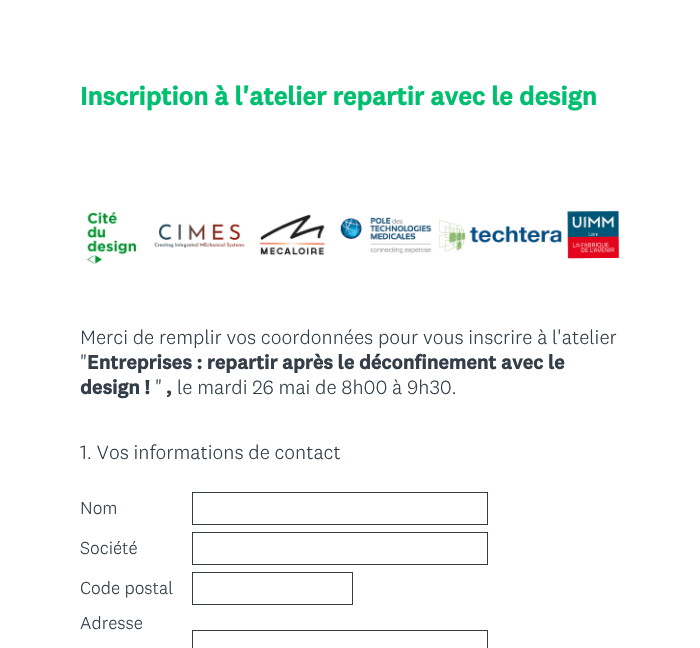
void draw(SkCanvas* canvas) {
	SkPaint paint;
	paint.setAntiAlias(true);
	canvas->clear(0xffffffff);
	SkFont f1(fontMgr->matchFamilyStyle("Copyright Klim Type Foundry", SkFontStyle::Bold()), 26);
	f1.setSubpixel(true);
	paint.setColor(0xff00bf6f);
	canvas->drawString("Inscription à l'atelier repartir avec le design", 80, 105, f1, paint);
	canvas->drawImageRect(SkImages::DeferredFromEncodedData(SkData::MakeFromFileName("img1.png")), SkRect::MakeXYWH(86, 210, 534, 54), SkSamplingOptions());
	SkFont f2(fontMgr->matchFamilyStyle("Copyright Klim Type Foundry", SkFontStyle(300, SkFontStyle::kNormal_Width, SkFontStyle::kUpright_Slant)), 20);
	f2.setSubpixel(true);
	paint.setColor(0xff333e48);
	canvas->drawString("Merci de remplir vos coordonnées pour vous inscrire à l'atelier", 80, 344, f2, paint);
	canvas->drawString("\"", 80, 369, f2, paint);
	SkFont f3(fontMgr->matchFamilyStyle("Copyright Klim Type Foundry", SkFontStyle::Bold()), 20);
	f3.setSubpixel(true);
	canvas->drawString("Entreprises : repartir après le déconfinement avec le", 87, 369, f3, paint);
	canvas->drawString("design !", 80, 394, f3, paint);
	canvas->drawString("\"", 155, 394, f2, paint);
	canvas->drawString(",", 166, 394, f3, paint);
	canvas->drawString("le mardi 26 mai de 8h00 à 9h30.", 177, 394, f2, paint);
	canvas->drawString("1. Vos informations de contact", 80, 459, f2, paint);
	SkFont f4(fontMgr->matchFamilyStyle("Copyright Klim Type Foundry", SkFontStyle(300, SkFontStyle::kNormal_Width, SkFontStyle::kUpright_Slant)), 18);
	f4.setSubpixel(true);
	canvas->drawString("Nom", 80, 514, f4, paint);
	paint.setStroke(true);
	paint.setStrokeWidth(1);
	canvas->drawRect(SkRect::MakeXYWH(192.5, 492.5, 295, 32), paint);
	paint.setStroke(false);
	canvas->drawString("Société", 80, 554, f4, paint);
	paint.setStroke(true);
	canvas->drawRect(SkRect::MakeXYWH(192.5, 532.5, 295, 32), paint);
	paint.setStroke(false);
	canvas->drawString("Code postal", 80, 594, f4, paint);
	paint.setStroke(true);
	canvas->drawRect(SkRect::MakeXYWH(192.5, 572.5, 160, 32), paint);
	paint.setStroke(false);
	canvas->drawString("Adresse", 80, 629, f4, paint);
	paint.setStroke(true);
	canvas->drawRect(SkRect::MakeXYWH(192.5, 630.5, 295, 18), paint);
}
